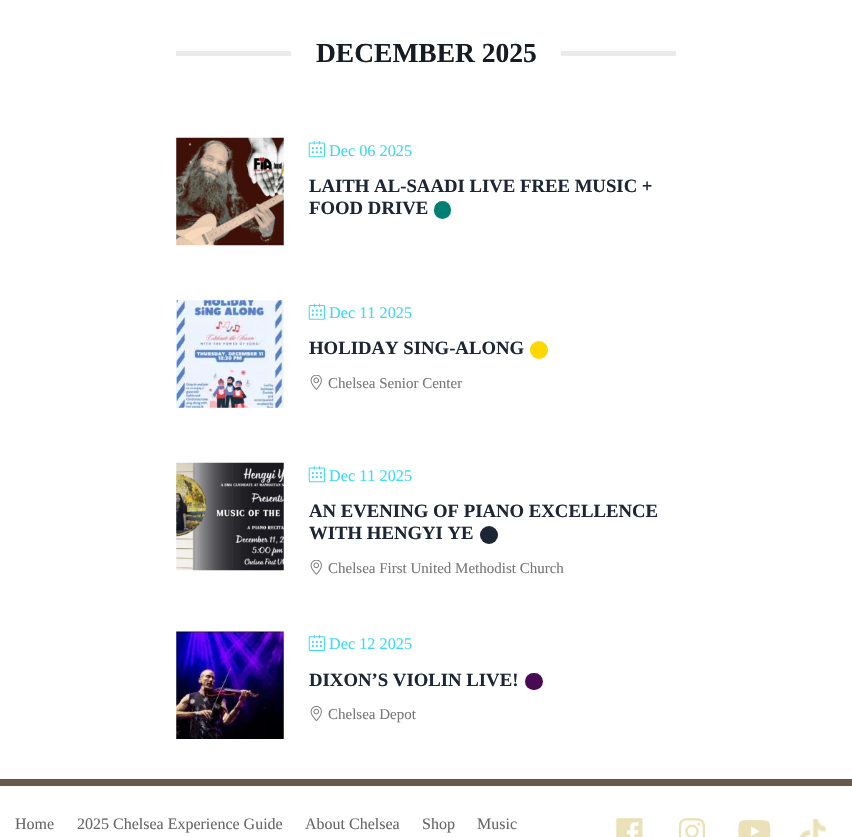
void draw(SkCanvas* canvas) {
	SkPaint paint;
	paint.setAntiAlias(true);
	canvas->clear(0xffffffff);
	paint.setColor(0xffebebeb);
	canvas->drawRect(SkRect::MakeXYWH(176, 51, 115, 5), paint);
	SkFont f1(fontMgr->matchFamilyStyle("Liberation Serif", SkFontStyle::Bold()), 27.5);
	f1.setSubpixel(true);
	paint.setColor(0xff171c24);
	canvas->drawString("DECEMBER 2025", 316, 62, f1, paint);
	paint.setColor(0xffebebeb);
	canvas->drawRect(SkRect::MakeXYWH(561, 51, 115, 5), paint);
	canvas->drawImageRect(SkImages::DeferredFromEncodedData(SkData::MakeFromFileName("img1.png")), SkRect::MakeXYWH(176, 137, 108, 109), SkSamplingOptions());
	canvas->drawImageRect(SkImages::DeferredFromEncodedData(SkData::MakeFromFileName("img2.png")), SkRect::MakeXYWH(308, 141, 17, 17), SkSamplingOptions());
	SkFont f2(fontMgr->matchFamilyStyle("Liberation Serif", SkFontStyle::Normal()), 16.25);
	f2.setSubpixel(true);
	paint.setColor(0xff40d9f1);
	canvas->drawString("Dec 06 2025", 329, 156, f2, paint);
	SkFont f3(fontMgr->matchFamilyStyle("Liberation Serif", SkFontStyle::Bold()), 18.75);
	f3.setSubpixel(true);
	paint.setColor(0xff1e2636);
	canvas->drawString("LAITH AL-SAADI LIVE FREE MUSIC +", 309, 192, f3, paint);
	canvas->drawString("FOOD DRIVE", 309, 214, f3, paint);
	paint.setColor(0xff007f72);
	canvas->drawRoundRect(SkRect::MakeXYWH(434, 201, 17, 18), 8.5, 8.5, paint);
	canvas->drawImageRect(SkImages::DeferredFromEncodedData(SkData::MakeFromFileName("img3.png")), SkRect::MakeXYWH(176, 300, 108, 108), SkSamplingOptions());
	canvas->drawImageRect(SkImages::DeferredFromEncodedData(SkData::MakeFromFileName("img4.png")), SkRect::MakeXYWH(308, 303, 17, 17), SkSamplingOptions());
	paint.setColor(0xff40d9f1);
	canvas->drawString("Dec 11 2025", 329, 318, f2, paint);
	paint.setColor(0xff1e2636);
	canvas->drawString("HOLIDAY SING-ALONG", 309, 354, f3, paint);
	paint.setColor(0xfffdd700);
	canvas->drawCircle(539, 350, 9, paint);
	canvas->drawImageRect(SkImages::DeferredFromEncodedData(SkData::MakeFromFileName("img5.png")), SkRect::MakeXYWH(310, 375, 12, 15), SkSamplingOptions());
	SkFont f4(fontMgr->matchFamilyStyle("Liberation Serif", SkFontStyle::Normal()), 15);
	f4.setSubpixel(true);
	paint.setColor(0xff777777);
	canvas->drawString("Chelsea Senior Center", 328, 388, f4, paint);
	canvas->drawImageRect(SkImages::DeferredFromEncodedData(SkData::MakeFromFileName("img6.png")), SkRect::MakeXYWH(176, 462, 108, 109), SkSamplingOptions());
	canvas->drawImageRect(SkImages::DeferredFromEncodedData(SkData::MakeFromFileName("img2.png")), SkRect::MakeXYWH(308, 466, 17, 17), SkSamplingOptions());
	paint.setColor(0xff40d9f1);
	canvas->drawString("Dec 11 2025", 329, 481, f2, paint);
	paint.setColor(0xff1e2636);
	canvas->drawString("AN EVENING OF PIANO EXCELLENCE", 309, 517, f3, paint);
	canvas->drawString("WITH HENGYI YE", 309, 539, f3, paint);
	canvas->drawCircle(489, 535, 9, paint);
	canvas->drawImageRect(SkImages::DeferredFromEncodedData(SkData::MakeFromFileName("img5.png")), SkRect::MakeXYWH(310, 560, 12, 15), SkSamplingOptions());
	paint.setColor(0xff777777);
	canvas->drawString("Chelsea First United Methodist Church", 328, 573, f4, paint);
	canvas->drawImageRect(SkImages::DeferredFromEncodedData(SkData::MakeFromFileName("img7.png")), SkRect::MakeXYWH(176, 631, 108, 108), SkSamplingOptions());
	canvas->drawImageRect(SkImages::DeferredFromEncodedData(SkData::MakeFromFileName("img8.png")), SkRect::MakeXYWH(308, 634, 17, 17), SkSamplingOptions());
	paint.setColor(0xff40d9f1);
	canvas->drawString("Dec 12 2025", 329, 649, f2, paint);
	paint.setColor(0xff1e2636);
	canvas->drawString("DIXON’S VIOLIN LIVE!", 309, 686, f3, paint);
	paint.setColor(0xff480955);
	canvas->drawRoundRect(SkRect::MakeXYWH(525, 673, 18, 17), 8.5, 8.5, paint);
	canvas->drawImageRect(SkImages::DeferredFromEncodedData(SkData::MakeFromFileName("img9.png")), SkRect::MakeXYWH(310, 706, 12, 15), SkSamplingOptions());
	paint.setColor(0xff777777);
	canvas->drawString("Chelsea Depot", 328, 719, f4, paint);
	paint.setColor(0xff66594a);
	canvas->drawRect(SkRect::MakeXYWH(0, 779, 852, 7), paint);
	SkFont f5(fontMgr->matchFamilyStyle("Liberation Serif", SkFontStyle::Normal()), 16);
	f5.setSubpixel(true);
	paint.setColor(0xff666666);
	canvas->drawString("Home", 15, 829, f5, paint);
	canvas->drawString("2025 Chelsea Experience Guide", 77, 829, f5, paint);
	canvas->drawString("About Chelsea", 305, 829, f5, paint);
	canvas->drawString("Shop", 422, 829, f5, paint);
	canvas->drawString("Music", 477, 829, f5, paint);
	canvas->drawImageRect(SkImages::DeferredFromEncodedData(SkData::MakeFromFileName("img10.png")), SkRect::MakeXYWH(616, 818, 27, 19), SkSamplingOptions());
	canvas->drawImageRect(SkImages::DeferredFromEncodedData(SkData::MakeFromFileName("img11.png")), SkRect::MakeXYWH(678, 818, 27, 19), SkSamplingOptions());
	canvas->drawImageRect(SkImages::DeferredFromEncodedData(SkData::MakeFromFileName("img12.png")), SkRect::MakeXYWH(738, 820, 33, 17), SkSamplingOptions());
	canvas->drawImageRect(SkImages::DeferredFromEncodedData(SkData::MakeFromFileName("img13.png")), SkRect::MakeXYWH(799, 819, 28, 18), SkSamplingOptions());
}
